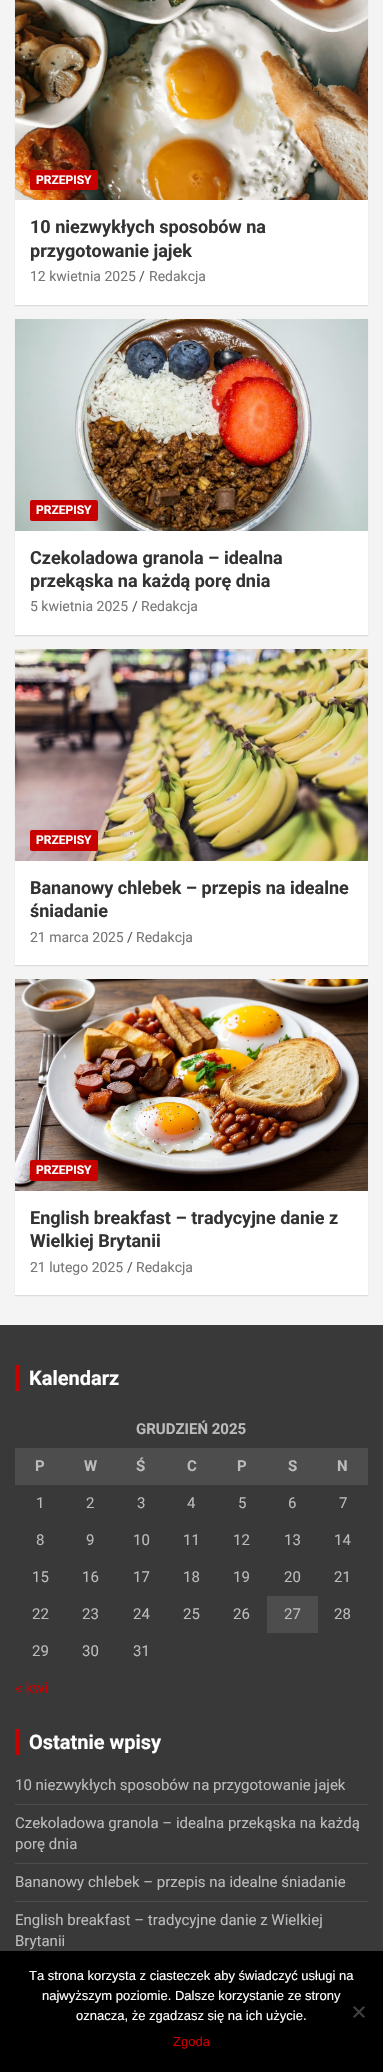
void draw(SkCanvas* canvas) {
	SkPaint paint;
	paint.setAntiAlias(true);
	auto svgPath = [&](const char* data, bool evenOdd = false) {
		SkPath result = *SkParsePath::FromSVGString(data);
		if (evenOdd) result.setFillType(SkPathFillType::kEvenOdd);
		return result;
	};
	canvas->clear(0xfff4f4f4);
	paint.setColor(0x1a000000);
	paint.setMaskFilter(SkMaskFilter::MakeBlur(kNormal_SkBlurStyle, 0.5));
	canvas->drawRect(SkRect::MakeXYWH(15, -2, 353, 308), paint);
	paint.setMaskFilter(nullptr);
	paint.setColor(0xffffffff);
	canvas->drawRect(SkRect::MakeXYWH(15, 200, 353, 105), paint);
	canvas->drawImageRect(SkImages::DeferredFromEncodedData(SkData::MakeFromFileName("img1.png")), SkRect::MakeXYWH(15, 0, 353, 200), SkSamplingOptions());
	paint.setColor(0xffc80000);
	canvas->drawRoundRect(SkRect::MakeXYWH(30, 170, 68, 20), 2, 2, paint);
	SkFont f1(fontMgr->matchFamilyStyle("Roboto", SkFontStyle::Bold()), 12);
	f1.setSubpixel(true);
	paint.setColor(0xffffffff);
	canvas->drawString("PRZEPISY", 36, 184, f1, paint);
	SkFont f2(fontMgr->matchFamilyStyle("Roboto", SkFontStyle::Bold()), 18);
	f2.setSubpixel(true);
	paint.setColor(0xff333333);
	canvas->drawString("10 niezwykłych sposobów na", 30, 233, f2, paint);
	canvas->drawString("przygotowanie jajek", 30, 257, f2, paint);
	SkFont f3(fontMgr->matchFamilyStyle("Roboto", SkFontStyle::Normal()), 14);
	f3.setSubpixel(true);
	paint.setColor(0xff777777);
	canvas->drawString("12 kwietnia 2025", 30, 281, f3, paint);
	paint.setColor(0xff555555);
	canvas->drawString("/", 139, 281, f3, paint);
	paint.setColor(0xff777777);
	canvas->drawString("Redakcja", 149, 281, f3, paint);
	paint.setColor(0x1a000000);
	paint.setMaskFilter(SkMaskFilter::MakeBlur(kNormal_SkBlurStyle, 0.5));
	canvas->drawRect(SkRect::MakeXYWH(15, 320, 353, 316), paint);
	paint.setMaskFilter(nullptr);
	paint.setColor(0xffffffff);
	canvas->drawRect(SkRect::MakeXYWH(15, 531, 353, 104), paint);
	canvas->drawImageRect(SkImages::DeferredFromEncodedData(SkData::MakeFromFileName("img2.png")), SkRect::MakeXYWH(15, 319, 353, 212), SkSamplingOptions());
	paint.setColor(0xffc80000);
	canvas->drawRoundRect(SkRect::MakeXYWH(30, 500, 68, 21), 2, 2, paint);
	paint.setColor(0xffffffff);
	canvas->drawString("PRZEPISY", 36, 514, f1, paint);
	paint.setColor(0xff333333);
	canvas->drawString("Czekoladowa granola – idealna", 30, 564, f2, paint);
	canvas->drawString("przekąska na każdą porę dnia", 30, 587, f2, paint);
	paint.setColor(0xff777777);
	canvas->drawString("5 kwietnia 2025", 30, 611, f3, paint);
	paint.setColor(0xff555555);
	canvas->drawString("/", 132, 611, f3, paint);
	paint.setColor(0xff777777);
	canvas->drawString("Redakcja", 141, 611, f3, paint);
	paint.setColor(0x1a000000);
	paint.setMaskFilter(SkMaskFilter::MakeBlur(kNormal_SkBlurStyle, 0.5));
	canvas->drawRect(SkRect::MakeXYWH(15, 650, 353, 316), paint);
	paint.setMaskFilter(nullptr);
	paint.setColor(0xffffffff);
	canvas->drawRect(SkRect::MakeXYWH(15, 861, 353, 104), paint);
	canvas->drawImageRect(SkImages::DeferredFromEncodedData(SkData::MakeFromFileName("img3.png")), SkRect::MakeXYWH(15, 649, 353, 212), SkSamplingOptions());
	paint.setColor(0xffc80000);
	canvas->drawRoundRect(SkRect::MakeXYWH(30, 830, 68, 21), 2, 2, paint);
	paint.setColor(0xffffffff);
	canvas->drawString("PRZEPISY", 36, 844, f1, paint);
	paint.setColor(0xff333333);
	canvas->drawString("Bananowy chlebek – przepis na idealne", 30, 894, f2, paint);
	canvas->drawString("śniadanie", 30, 917, f2, paint);
	paint.setColor(0xff777777);
	canvas->drawString("21 marca 2025", 30, 942, f3, paint);
	paint.setColor(0xff555555);
	canvas->drawString("/", 127, 942, f3, paint);
	paint.setColor(0xff777777);
	canvas->drawString("Redakcja", 136, 942, f3, paint);
	paint.setColor(0x1a000000);
	paint.setMaskFilter(SkMaskFilter::MakeBlur(kNormal_SkBlurStyle, 0.5));
	canvas->drawRect(SkRect::MakeXYWH(15, 980, 353, 316), paint);
	paint.setMaskFilter(nullptr);
	paint.setColor(0xffffffff);
	canvas->drawRect(SkRect::MakeXYWH(15, 1191, 353, 104), paint);
	canvas->drawImageRect(SkImages::DeferredFromEncodedData(SkData::MakeFromFileName("img4.png")), SkRect::MakeXYWH(15, 979, 353, 212), SkSamplingOptions());
	paint.setColor(0xffc80000);
	canvas->drawRoundRect(SkRect::MakeXYWH(30, 1160, 68, 21), 2, 2, paint);
	paint.setColor(0xffffffff);
	canvas->drawString("PRZEPISY", 36, 1174, f1, paint);
	paint.setColor(0xff333333);
	canvas->drawString("English breakfast – tradycyjne danie z", 30, 1224, f2, paint);
	canvas->drawString("Wielkiej Brytanii", 30, 1247, f2, paint);
	paint.setColor(0xff777777);
	canvas->drawString("21 lutego 2025", 30, 1272, f3, paint);
	paint.setColor(0xff555555);
	canvas->drawString("/", 127, 1272, f3, paint);
	paint.setColor(0xff777777);
	canvas->drawString("Redakcja", 136, 1272, f3, paint);
	paint.setColor(0xff393939);
	canvas->drawRect(SkRect::MakeXYWH(0, 1325, 383, 626), paint);
	paint.setColor(0xffc80000);
	canvas->drawRect(SkRect::MakeXYWH(15, 1365, 4, 26), paint);
	SkFont f4(fontMgr->matchFamilyStyle("Roboto", SkFontStyle::Bold()), 20);
	f4.setSubpixel(true);
	paint.setColor(0xffffffff);
	canvas->drawString("Kalendarz", 29, 1385, f4, paint);
	SkFont f5(fontMgr->matchFamilyStyle("Roboto", SkFontStyle::Bold()), 15);
	f5.setSubpixel(true);
	paint.setColor(0xffbbbbbb);
	canvas->drawString("GRUDZIEŃ 2025", 136, 1434, f5, paint);
	paint.setColor(0xff4d4d4d);
	canvas->drawRect(SkRect::MakeXYWH(15, 1448, 353, 37), paint);
	paint.setColor(0xffbbbbbb);
	canvas->drawString("P", 35, 1471, f5, paint);
	canvas->drawString("W", 84, 1471, f5, paint);
	canvas->drawString("Ś", 136, 1471, f5, paint);
	canvas->drawString("C", 187, 1471, f5, paint);
	canvas->drawString("P", 237, 1471, f5, paint);
	canvas->drawString("S", 288, 1471, f5, paint);
	canvas->drawString("N", 337, 1471, f5, paint);
	SkFont f6(fontMgr->matchFamilyStyle("Roboto", SkFontStyle::Normal()), 15);
	f6.setSubpixel(true);
	canvas->drawString("1", 36, 1508, f6, paint);
	canvas->drawString("2", 86, 1508, f6, paint);
	canvas->drawString("3", 137, 1508, f6, paint);
	canvas->drawString("4", 187, 1508, f6, paint);
	canvas->drawString("5", 238, 1508, f6, paint);
	canvas->drawString("6", 288, 1508, f6, paint);
	canvas->drawString("7", 339, 1508, f6, paint);
	canvas->drawString("8", 36, 1545, f6, paint);
	canvas->drawString("9", 86, 1545, f6, paint);
	canvas->drawString("10", 133, 1545, f6, paint);
	canvas->drawString("11", 183, 1545, f6, paint);
	canvas->drawString("12", 233, 1545, f6, paint);
	canvas->drawString("13", 284, 1545, f6, paint);
	canvas->drawString("14", 334, 1545, f6, paint);
	canvas->drawString("15", 32, 1582, f6, paint);
	canvas->drawString("16", 82, 1582, f6, paint);
	canvas->drawString("17", 133, 1582, f6, paint);
	canvas->drawString("18", 183, 1582, f6, paint);
	canvas->drawString("19", 233, 1582, f6, paint);
	canvas->drawString("20", 284, 1582, f6, paint);
	canvas->drawString("21", 334, 1582, f6, paint);
	canvas->drawString("22", 32, 1619, f6, paint);
	canvas->drawString("23", 82, 1619, f6, paint);
	canvas->drawString("24", 133, 1619, f6, paint);
	canvas->drawString("25", 183, 1619, f6, paint);
	canvas->drawString("26", 233, 1619, f6, paint);
	paint.setColor(0xff4d4d4d);
	canvas->drawRect(SkRect::MakeXYWH(267, 1596, 51, 37), paint);
	paint.setColor(0xffbbbbbb);
	canvas->drawString("27", 284, 1619, f6, paint);
	canvas->drawString("28", 334, 1619, f6, paint);
	canvas->drawString("29", 32, 1656, f6, paint);
	canvas->drawString("30", 82, 1656, f6, paint);
	canvas->drawString("31", 133, 1656, f6, paint);
	paint.setColor(0xffc80000);
	canvas->drawString("« kwi", 15, 1693, f6, paint);
	canvas->drawRect(SkRect::MakeXYWH(15, 1729, 4, 26), paint);
	paint.setColor(0xffffffff);
	canvas->drawString("Ostatnie wpisy", 29, 1749, f4, paint);
	paint.setColor(0xff4d4d4d);
	canvas->drawRect(SkRect::MakeXYWH(15, 1804, 353, 1), paint);
	paint.setColor(0xffbbbbbb);
	canvas->drawString("10 niezwykłych sposobów na przygotowanie jajek", 15, 1790, f6, paint);
	paint.setColor(0xff4d4d4d);
	canvas->drawRect(SkRect::MakeXYWH(15, 1863, 353, 1), paint);
	paint.setColor(0xffbbbbbb);
	canvas->drawString("Czekoladowa granola – idealna przekąska na każdą", 15, 1828, f6, paint);
	canvas->drawString("porę dnia", 15, 1849, f6, paint);
	paint.setColor(0xff4d4d4d);
	canvas->drawRect(SkRect::MakeXYWH(15, 1901, 353, 1), paint);
	paint.setColor(0xffbbbbbb);
	canvas->drawString("Bananowy chlebek – przepis na idealne śniadanie", 15, 1887, f6, paint);
	canvas->drawString("English breakfast – tradycyjne danie z Wielkiej", 15, 1925, f6, paint);
	canvas->drawString("Brytanii", 15, 1946, f6, paint);
	paint.setColor(0xff000000);
	canvas->drawRect(SkRect::MakeXYWH(0, 1951, 383, 121), paint);
	SkFont f7(fontMgr->matchFamilyStyle("Liberation Sans", SkFontStyle::Normal()), 13);
	f7.setSubpixel(true);
	paint.setColor(0xffffffff);
	canvas->drawString("Ta strona korzysta z ciasteczek aby świadczyć usługi na", 29, 1980, f7, paint);
	canvas->drawString("najwyższym poziomie. Dalsze korzystanie ze strony", 42, 2000, f7, paint);
	canvas->drawString("oznacza, że zgadzasz się na ich użycie.", 76, 2020, f7, paint);
	paint.setColor(0xff404040);
	canvas->drawPath(svgPath("M363.5 2006L365 2007.5L354.5 2018L353 2016.5Z"), paint);
	canvas->drawPath(svgPath("M353 2007.5L354.5 2006L365 2016.5L363.5 2018Z"), paint);
	paint.setColor(0xffc80000);
	canvas->drawString("Zgoda", 173, 2046, f7, paint);
}
